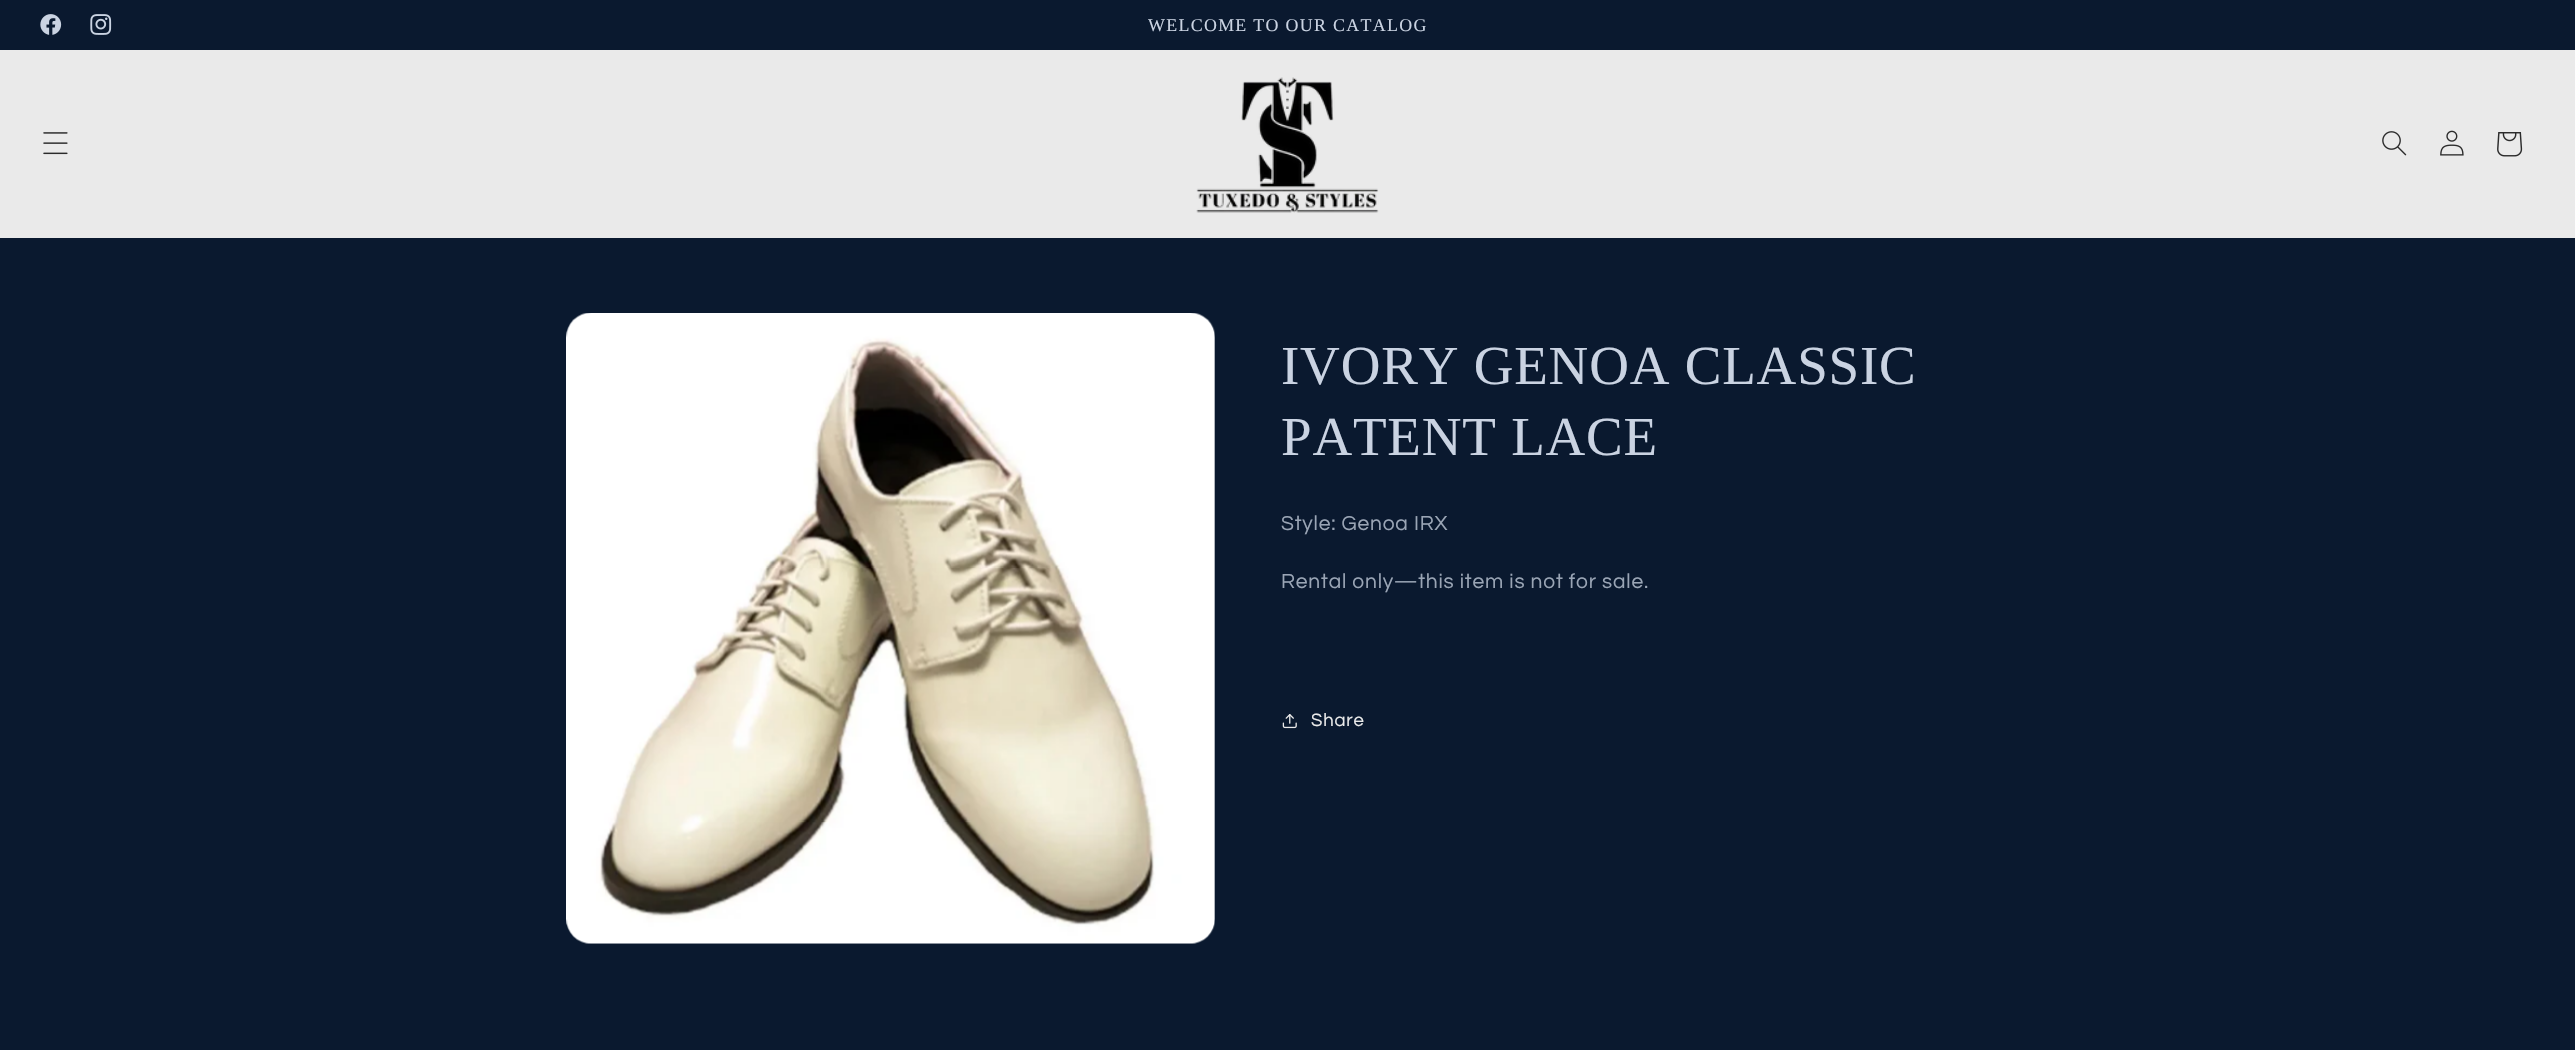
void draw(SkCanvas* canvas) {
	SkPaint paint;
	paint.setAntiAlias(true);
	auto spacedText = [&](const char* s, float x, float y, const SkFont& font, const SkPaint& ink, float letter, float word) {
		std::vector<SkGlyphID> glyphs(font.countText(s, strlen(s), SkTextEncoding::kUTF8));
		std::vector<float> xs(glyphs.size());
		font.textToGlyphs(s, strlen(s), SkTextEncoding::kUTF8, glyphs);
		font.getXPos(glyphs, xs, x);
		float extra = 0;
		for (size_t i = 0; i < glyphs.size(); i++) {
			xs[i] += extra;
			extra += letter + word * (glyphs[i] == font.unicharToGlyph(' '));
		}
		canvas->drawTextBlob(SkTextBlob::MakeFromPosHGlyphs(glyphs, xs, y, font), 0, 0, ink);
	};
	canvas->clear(0xff0a192f);
	canvas->drawImageRect(SkImages::DeferredFromEncodedData(SkData::MakeFromFileName("img1.png")), SkRect::MakeXYWH(40, 14, 22, 21), SkSamplingOptions());
	canvas->drawImageRect(SkImages::DeferredFromEncodedData(SkData::MakeFromFileName("img2.png")), SkRect::MakeXYWH(90, 14, 22, 21), SkSamplingOptions());
	SkFont f1(fontMgr->matchFamilyStyle("Liberation Serif", SkFontStyle::Normal()), 17.9);
	f1.setSubpixel(true);
	paint.setColor(0xffcad3e2);
	spacedText("WELCOME TO OUR CATALOG", 1148, 31, f1, paint, 1.3, 0);
	paint.setColor(0xffeaeaea);
	canvas->drawRect(SkRect::MakeXYWH(0, 50, 2575, 188), paint);
	canvas->drawImageRect(SkImages::DeferredFromEncodedData(SkData::MakeFromFileName("img3.png")), SkRect::MakeXYWH(43, 132, 25, 23), SkSamplingOptions());
	canvas->drawImageRect(SkImages::DeferredFromEncodedData(SkData::MakeFromFileName("img4.png")), SkRect::MakeXYWH(1196, 77, 183, 136), SkSamplingOptions());
	canvas->drawImageRect(SkImages::DeferredFromEncodedData(SkData::MakeFromFileName("img5.png")), SkRect::MakeXYWH(2382, 131, 25, 25), SkSamplingOptions());
	canvas->drawImageRect(SkImages::DeferredFromEncodedData(SkData::MakeFromFileName("img6.png")), SkRect::MakeXYWH(2440, 130, 24, 26), SkSamplingOptions());
	canvas->drawImageRect(SkImages::DeferredFromEncodedData(SkData::MakeFromFileName("img7.png")), SkRect::MakeXYWH(2497, 132, 26, 25), SkSamplingOptions());
	canvas->drawImageRect(SkImages::DeferredFromEncodedData(SkData::MakeFromFileName("img8.png")), SkRect::MakeXYWH(566, 313, 649, 631), SkSamplingOptions());
	SkFont f2(fontMgr->matchFamilyStyle("Liberation Serif", SkFontStyle::Normal()), 55);
	f2.setSubpixel(true);
	paint.setColor(0xffcad3e2);
	spacedText("IVORY GENOA CLASSIC", 1281, 384, f2, paint, 0.8, 0);
	spacedText("PATENT LACE", 1281, 455, f2, paint, 0.8, 0);
	SkFont f3(fontMgr->matchFamilyStyle("Questrial", SkFontStyle::Normal()), 21);
	f3.setSubpixel(true);
	paint.setColor(0xff9aa5b5);
	spacedText("Style: Genoa IRX", 1281, 530, f3, paint, 0.8, 0);
	spacedText("Rental only—this item is not for sale.", 1281, 588, f3, paint, 0.8, 0);
	canvas->drawImageRect(SkImages::DeferredFromEncodedData(SkData::MakeFromFileName("img9.png")), SkRect::MakeXYWH(1282, 714, 15, 15), SkSamplingOptions());
	SkFont f4(fontMgr->matchFamilyStyle("Questrial", SkFontStyle::Normal()), 18.5);
	f4.setSubpixel(true);
	paint.setColor(0xffeaeaea);
	spacedText("Share", 1311, 726, f4, paint, 0.8, 0);
}
